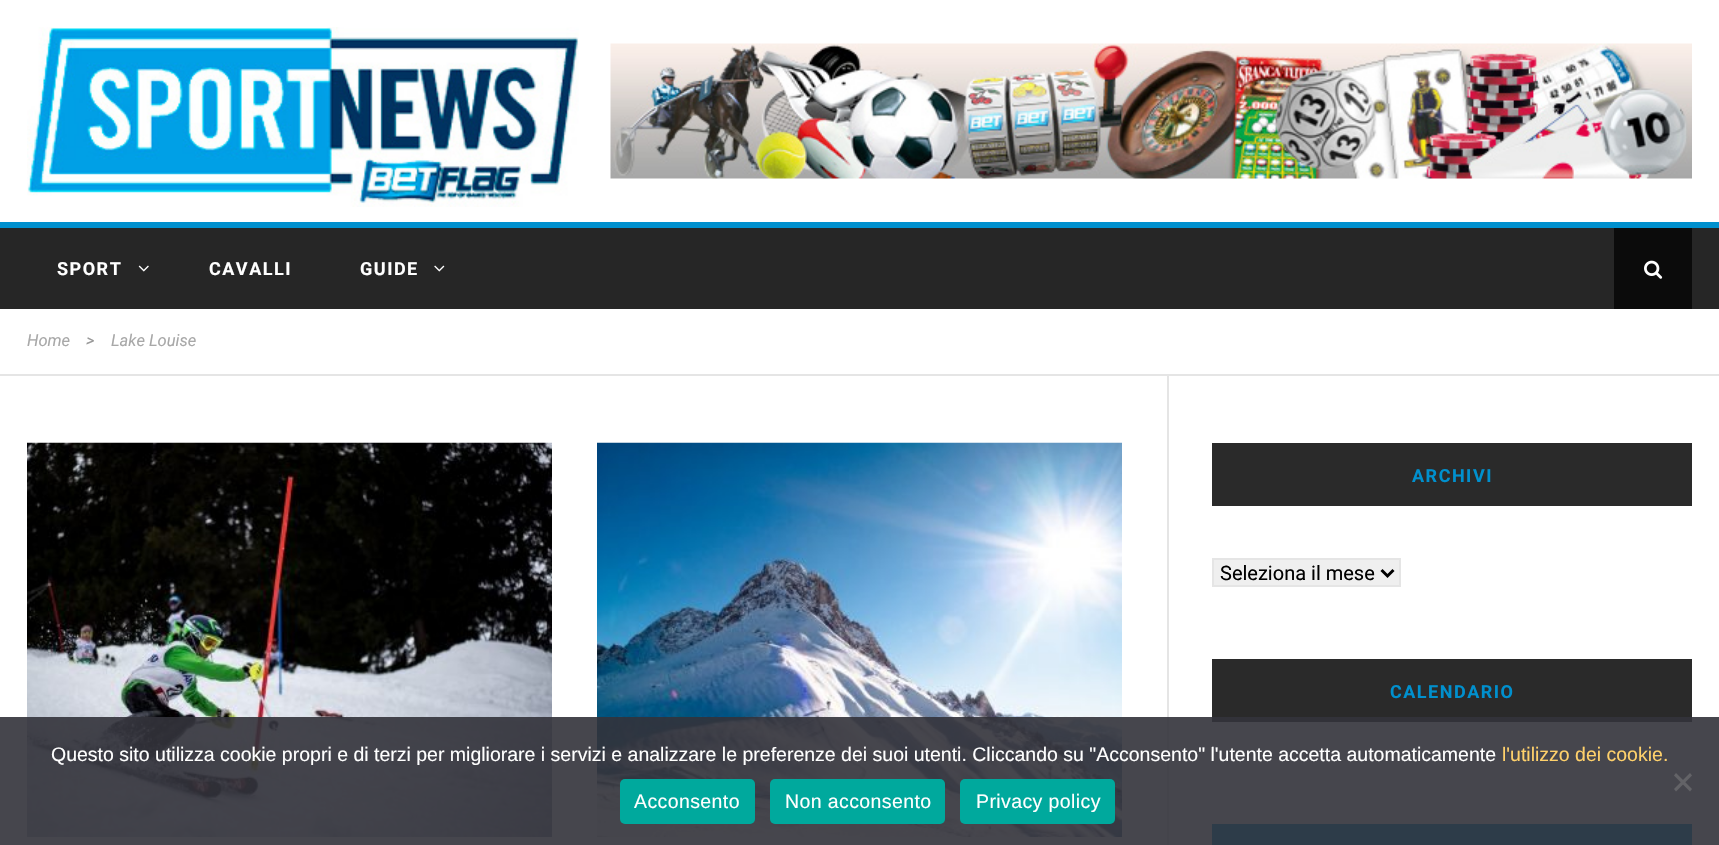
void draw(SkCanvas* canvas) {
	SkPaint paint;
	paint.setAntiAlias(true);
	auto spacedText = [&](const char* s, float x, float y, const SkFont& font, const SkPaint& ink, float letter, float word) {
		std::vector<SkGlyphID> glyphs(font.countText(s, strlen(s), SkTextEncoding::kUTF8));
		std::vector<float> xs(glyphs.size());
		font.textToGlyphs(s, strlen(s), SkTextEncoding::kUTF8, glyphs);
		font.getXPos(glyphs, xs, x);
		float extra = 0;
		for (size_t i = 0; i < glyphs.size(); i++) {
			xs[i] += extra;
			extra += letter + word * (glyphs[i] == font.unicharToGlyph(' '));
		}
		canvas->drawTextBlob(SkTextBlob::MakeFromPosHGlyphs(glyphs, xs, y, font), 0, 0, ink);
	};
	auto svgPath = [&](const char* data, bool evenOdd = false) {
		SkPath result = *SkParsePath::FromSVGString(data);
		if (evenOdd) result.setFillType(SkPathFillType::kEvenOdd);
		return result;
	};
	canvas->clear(0xffffffff);
	canvas->drawImageRect(SkImages::DeferredFromEncodedData(SkData::MakeFromFileName("img1.png")), SkRect::MakeXYWH(27, 27, 552, 180), SkSamplingOptions());
	canvas->drawImageRect(SkImages::DeferredFromEncodedData(SkData::MakeFromFileName("img2.png")), SkRect::MakeXYWH(610, 43, 1082, 136), SkSamplingOptions());
	paint.setColor(0xff262626);
	canvas->drawRect(SkRect::MakeXYWH(0, 228, 1719, 81), paint);
	paint.setColor(0xff0090ce);
	canvas->drawRect(SkRect::MakeXYWH(0, 222, 1719, 6), paint);
	SkFont f1(fontMgr->matchFamilyStyle("Roboto", SkFontStyle::Bold()), 18);
	f1.setSubpixel(true);
	paint.setColor(0xffffffff);
	spacedText("SPORT", 57, 275, f1, paint, 1.5, 0);
	canvas->drawImageRect(SkImages::DeferredFromEncodedData(SkData::MakeFromFileName("img3.png")), SkRect::MakeXYWH(138, 265, 11, 7), SkSamplingOptions());
	spacedText("CAVALLI", 209, 275, f1, paint, 1.5, 0);
	spacedText("GUIDE", 360, 275, f1, paint, 1.5, 0);
	canvas->drawImageRect(SkImages::DeferredFromEncodedData(SkData::MakeFromFileName("img4.png")), SkRect::MakeXYWH(434, 265, 11, 7), SkSamplingOptions());
	paint.setColor(0xff0b0b0b);
	canvas->drawRect(SkRect::MakeXYWH(1614, 228, 78, 81), paint);
	canvas->drawImageRect(SkImages::DeferredFromEncodedData(SkData::MakeFromFileName("img5.png")), SkRect::MakeXYWH(1644, 260, 19, 19), SkSamplingOptions());
	paint.setColor(0xffe5e5e5);
	canvas->drawRect(SkRect::MakeXYWH(0, 374, 1719, 2), paint);
	SkFont f2(fontMgr->matchFamilyStyle("Roboto", SkFontStyle::Italic()), 16.5);
	f2.setSubpixel(true);
	paint.setColor(0xffa8a8a8);
	canvas->drawString("Home", 27, 346, f2, paint);
	paint.setColor(0xff999999);
	canvas->drawString(">", 86, 346, f2, paint);
	paint.setColor(0xffa8a8a8);
	canvas->drawString("Lake Louise", 111, 346, f2, paint);
	canvas->drawImageRect(SkImages::DeferredFromEncodedData(SkData::MakeFromFileName("img6.png")), SkRect::MakeXYWH(27, 442, 525, 395), SkSamplingOptions());
	canvas->drawImageRect(SkImages::DeferredFromEncodedData(SkData::MakeFromFileName("img7.png")), SkRect::MakeXYWH(597, 442, 525, 395), SkSamplingOptions());
	paint.setColor(0xffe5e5e5);
	canvas->drawRect(SkRect::MakeXYWH(1167, 375, 2, 470), paint);
	paint.setColor(0xff2a2a2a);
	canvas->drawRect(SkRect::MakeXYWH(1212, 443, 480, 63), paint);
	paint.setColor(0xff0090ce);
	spacedText("ARCHIVI", 1412, 482, f1, paint, 1.5, 0);
	paint.setColor(0xffefefef);
	canvas->drawRect(SkRect::MakeXYWH(1213, 559, 187, 27), paint);
	paint.setStroke(true);
	paint.setStrokeWidth(2);
	paint.setColor(0xffe5e5e5);
	canvas->drawRect(SkRect::MakeXYWH(1213, 559, 187, 27), paint);
	paint.setStrokeWidth(3);
	paint.setColor(0xff000000);
	canvas->drawPath(svgPath("M1381.5 570L1387.5 576L1393.5 570"), paint);
	SkFont f3(fontMgr->matchFamilyStyle("Roboto", SkFontStyle::Normal()), 20);
	f3.setSubpixel(true);
	paint.setStroke(false);
	canvas->drawString("Seleziona il mese", 1220, 580, f3, paint);
	paint.setColor(0xff2a2a2a);
	canvas->drawRect(SkRect::MakeXYWH(1212, 659, 480, 63), paint);
	paint.setColor(0xff0090ce);
	spacedText("CALENDARIO", 1390, 698, f1, paint, 1.5, 0);
	canvas->drawRect(SkRect::MakeXYWH(1212, 824, 480, 21), paint);
	paint.setColor(0xe632323a);
	canvas->drawRect(SkRect::MakeXYWH(0, 717, 1719, 128), paint);
	SkFont f4(fontMgr->matchFamilyStyle("Liberation Sans", SkFontStyle::Normal()), 19.5);
	f4.setSubpixel(true);
	paint.setColor(0xffffffff);
	canvas->drawString("Questo sito utilizza cookie propri e di terzi per migliorare i servizi e analizzare le preferenze dei suoi utenti. Cliccando su \"Acconsento\" l'utente accetta automaticamente", 51, 761, f4, paint);
	paint.setColor(0xffffd16b);
	canvas->drawString("l'utilizzo dei cookie.", 1502, 761, f4, paint);
	paint.setColor(0xff636367);
	canvas->drawPath(svgPath("M1690 773L1692 775.5L1676 791.5L1674 789Z"), paint);
	canvas->drawPath(svgPath("M1674 775.5L1676 773L1692 789L1690 791.5Z"), paint);
	paint.setColor(0xff00a99d);
	canvas->drawRoundRect(SkRect::MakeXYWH(620, 779, 135, 45), 5, 5, paint);
	paint.setColor(0xffffffff);
	spacedText("Acconsento", 634, 808, f4, paint, 0.4, 0);
	paint.setColor(0xff00a99d);
	canvas->drawRoundRect(SkRect::MakeXYWH(770, 779, 175, 45), 5, 5, paint);
	paint.setColor(0xffffffff);
	spacedText("Non acconsento", 785, 808, f4, paint, 0.4, 0);
	paint.setColor(0xff00a99d);
	canvas->drawRoundRect(SkRect::MakeXYWH(960, 779, 155, 45), 5, 5, paint);
	paint.setColor(0xffffffff);
	spacedText("Privacy policy", 976, 808, f4, paint, 0.4, 0);
}
